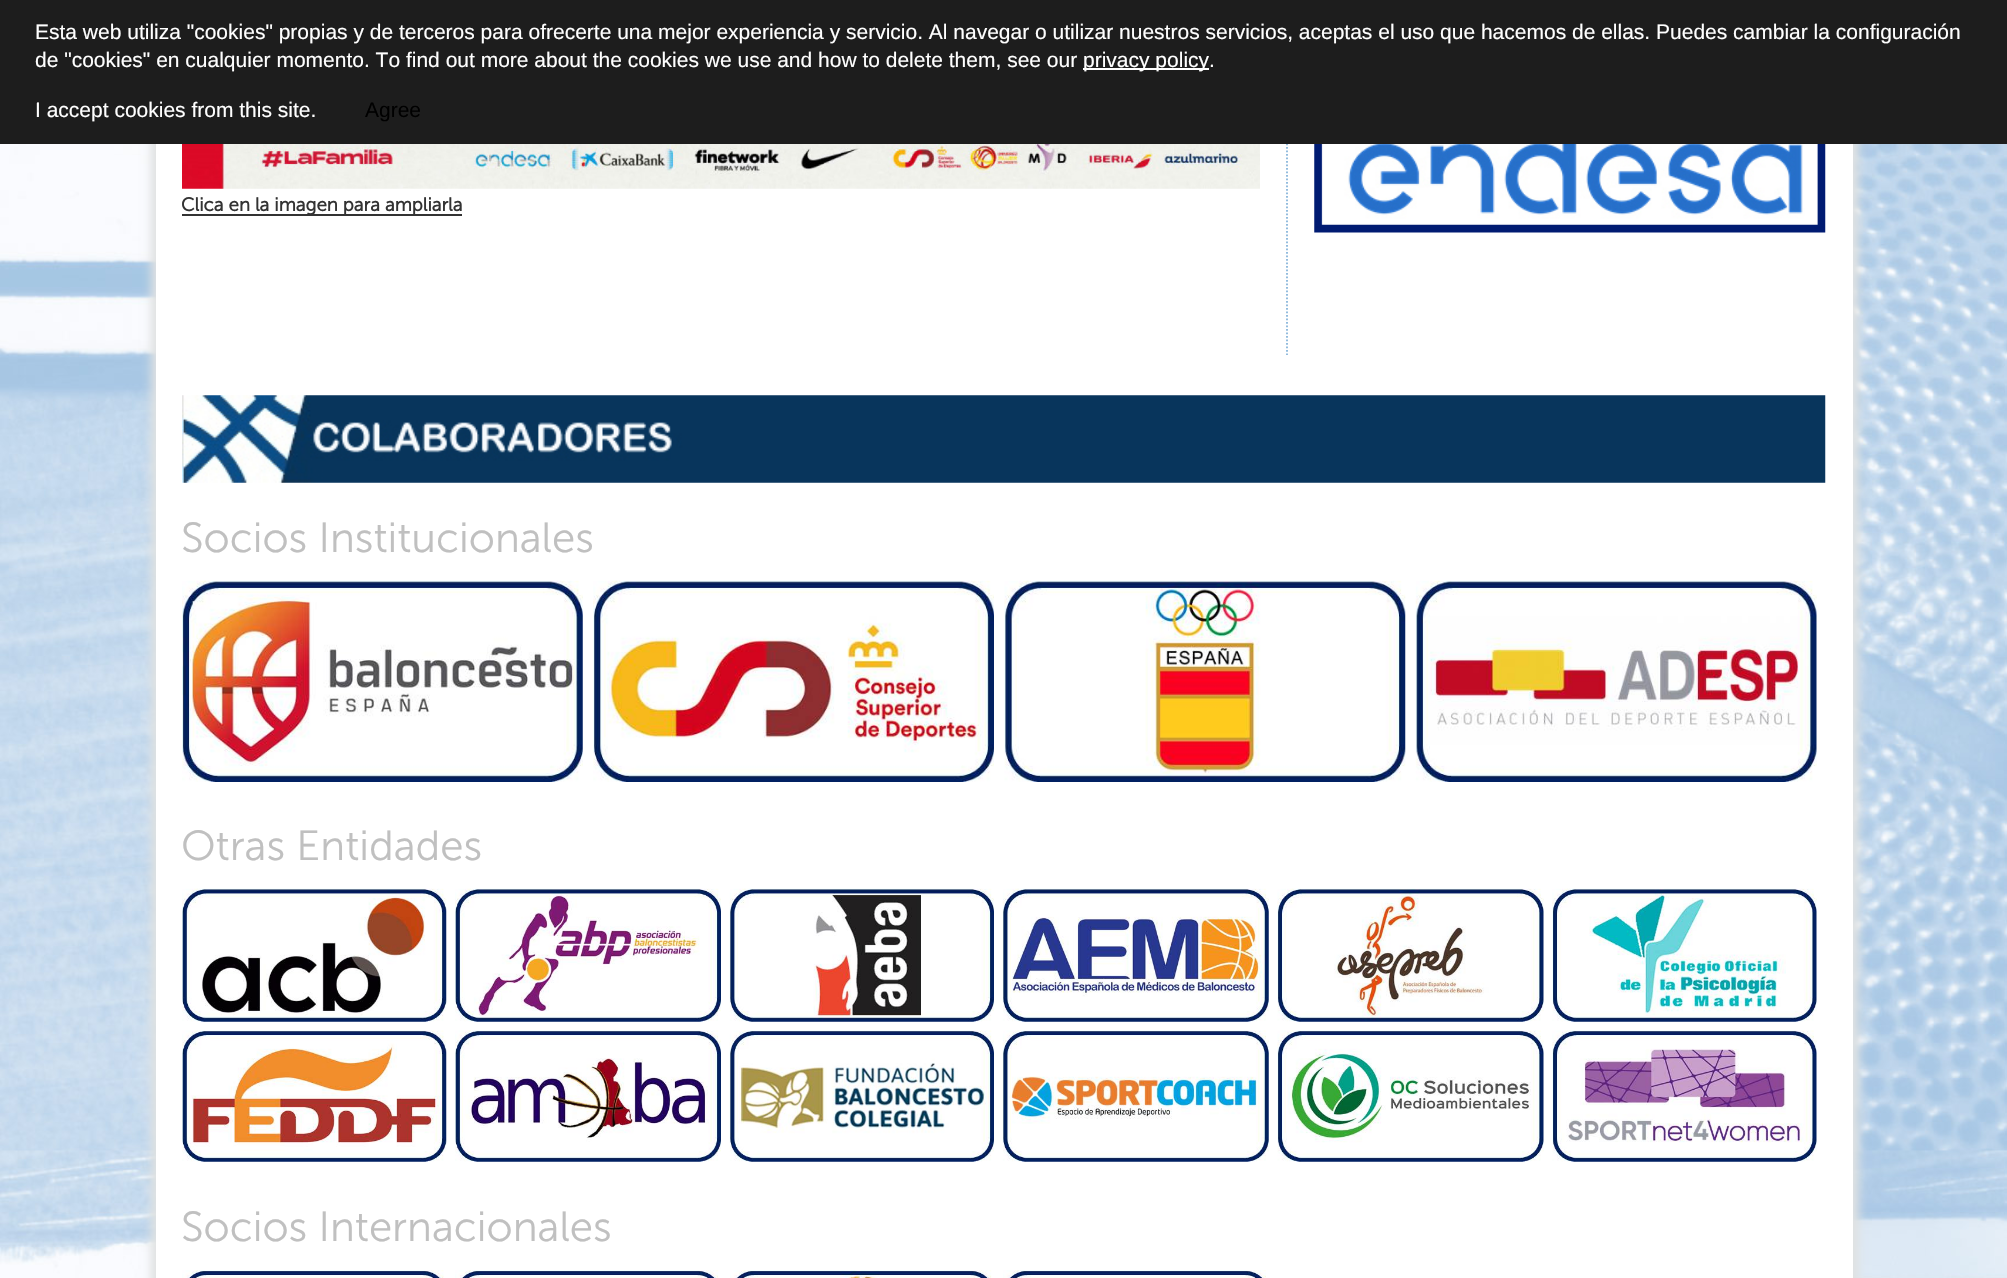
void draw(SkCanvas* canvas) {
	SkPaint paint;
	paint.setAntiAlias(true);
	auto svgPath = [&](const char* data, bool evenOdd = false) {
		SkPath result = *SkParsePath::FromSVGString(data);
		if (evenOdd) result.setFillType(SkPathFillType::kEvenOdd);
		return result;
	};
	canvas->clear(0xffffffff);
	canvas->drawImageRect(SkImages::DeferredFromEncodedData(SkData::MakeFromFileName("img1.png")), SkRect::MakeXYWH(0, 144, 2007, 1134), SkSamplingOptions());
	paint.setColor(0xffe0e2e2);
	paint.setMaskFilter(SkMaskFilter::MakeBlur(kNormal_SkBlurStyle, 4.5));
	canvas->drawRect(SkRect::MakeXYWH(151, -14, 1697, 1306), paint);
	paint.setMaskFilter(nullptr);
	paint.setMaskFilter(SkMaskFilter::MakeBlur(kNormal_SkBlurStyle, 4.5));
	canvas->drawRect(SkRect::MakeXYWH(161, -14, 1698, 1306), paint);
	paint.setMaskFilter(nullptr);
	paint.setColor(0xffffffff);
	canvas->drawRect(SkRect::MakeXYWH(156, 144, 1697, 1134), paint);
	paint.setStroke(true);
	paint.setStrokeWidth(1.8);
	paint.setColor(0xff87b5db);
	paint.setPathEffect(SkDashPathEffect::Make({{1.75f, 1.75f}}, 0));
	canvas->drawPath(svgPath("M1287-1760.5V355"), paint);
	paint.setPathEffect(nullptr);
	paint.setStroke(false);
	paint.setColor(0xff1d1d1d);
	canvas->drawRect(SkRect::MakeXYWH(0, 0, 2007, 144), paint);
	SkFont f1(fontMgr->matchFamilyStyle("Liberation Sans", SkFontStyle::Normal()), 21);
	f1.setSubpixel(true);
	paint.setColor(0xffffffff);
	canvas->drawString("Esta web utiliza \"cookies\" propias y de terceros para ofrecerte una mejor experiencia y servicio. Al navegar o utilizar nuestros servicios, aceptas el uso que hacemos de ellas. Puedes cambiar la configuración", 35, 39, f1, paint);
	canvas->drawString("de \"cookies\" en cualquier momento. To find out more about the cookies we use and how to delete them, see our", 35, 67, f1, paint);
	canvas->drawRect(SkRect::MakeXYWH(1083, 68, 126, 2), paint);
	canvas->drawString("privacy policy.", 1083, 67, f1, paint);
	canvas->drawString("I accept cookies from this site.", 35, 117, f1, paint);
	paint.setColor(0xff000000);
	canvas->drawString("Agree", 365, 117, f1, paint);
	canvas->drawImageRect(SkImages::DeferredFromEncodedData(SkData::MakeFromFileName("img2.png")), SkRect::MakeXYWH(182, 144, 1078, 45), SkSamplingOptions());
	paint.setColor(0xff333333);
	canvas->drawRect(SkRect::MakeXYWH(182, 214, 280, 2), paint);
	SkFont f2(fontMgr->matchFamilyStyle("Museo Sans", SkFontStyle::Bold()), 18.7);
	f2.setSubpixel(true);
	canvas->drawString("Clica en la imagen para ampliarla", 181, 211, f2, paint);
	canvas->drawImageRect(SkImages::DeferredFromEncodedData(SkData::MakeFromFileName("img3.png")), SkRect::MakeXYWH(1314, 144, 512, 89), SkSamplingOptions());
	canvas->drawImageRect(SkImages::DeferredFromEncodedData(SkData::MakeFromFileName("img4.png")), SkRect::MakeXYWH(182, 395, 1644, 88), SkSamplingOptions());
	SkFont f3(fontMgr->matchFamilyStyle("Museo Sans", SkFontStyle(300, SkFontStyle::kNormal_Width, SkFontStyle::kUpright_Slant)), 42);
	f3.setSubpixel(true);
	paint.setColor(0xffc0c0c0);
	canvas->drawString("Socios Institucionales", 181, 552, f3, paint);
	canvas->drawImageRect(SkImages::DeferredFromEncodedData(SkData::MakeFromFileName("img5.png")), SkRect::MakeXYWH(182, 580, 401, 202), SkSamplingOptions());
	canvas->drawImageRect(SkImages::DeferredFromEncodedData(SkData::MakeFromFileName("img6.png")), SkRect::MakeXYWH(593, 580, 401, 202), SkSamplingOptions());
	canvas->drawImageRect(SkImages::DeferredFromEncodedData(SkData::MakeFromFileName("img7.png")), SkRect::MakeXYWH(1004, 580, 402, 202), SkSamplingOptions());
	canvas->drawImageRect(SkImages::DeferredFromEncodedData(SkData::MakeFromFileName("img8.png")), SkRect::MakeXYWH(1415, 580, 402, 202), SkSamplingOptions());
	canvas->drawString("Otras Entidades", 181, 860, f3, paint);
	canvas->drawImageRect(SkImages::DeferredFromEncodedData(SkData::MakeFromFileName("img9.png")), SkRect::MakeXYWH(182, 888, 265, 134), SkSamplingOptions());
	canvas->drawImageRect(SkImages::DeferredFromEncodedData(SkData::MakeFromFileName("img10.png")), SkRect::MakeXYWH(455, 888, 266, 134), SkSamplingOptions());
	canvas->drawImageRect(SkImages::DeferredFromEncodedData(SkData::MakeFromFileName("img11.png")), SkRect::MakeXYWH(729, 888, 265, 134), SkSamplingOptions());
	canvas->drawImageRect(SkImages::DeferredFromEncodedData(SkData::MakeFromFileName("img12.png")), SkRect::MakeXYWH(1002, 888, 267, 134), SkSamplingOptions());
	canvas->drawImageRect(SkImages::DeferredFromEncodedData(SkData::MakeFromFileName("img13.png")), SkRect::MakeXYWH(1277, 888, 267, 134), SkSamplingOptions());
	canvas->drawImageRect(SkImages::DeferredFromEncodedData(SkData::MakeFromFileName("img14.png")), SkRect::MakeXYWH(1552, 888, 265, 134), SkSamplingOptions());
	canvas->drawImageRect(SkImages::DeferredFromEncodedData(SkData::MakeFromFileName("img15.png")), SkRect::MakeXYWH(182, 1030, 265, 132), SkSamplingOptions());
	canvas->drawImageRect(SkImages::DeferredFromEncodedData(SkData::MakeFromFileName("img16.png")), SkRect::MakeXYWH(455, 1030, 266, 132), SkSamplingOptions());
	canvas->drawImageRect(SkImages::DeferredFromEncodedData(SkData::MakeFromFileName("img17.png")), SkRect::MakeXYWH(729, 1030, 265, 132), SkSamplingOptions());
	canvas->drawImageRect(SkImages::DeferredFromEncodedData(SkData::MakeFromFileName("img18.png")), SkRect::MakeXYWH(1002, 1030, 267, 132), SkSamplingOptions());
	canvas->drawImageRect(SkImages::DeferredFromEncodedData(SkData::MakeFromFileName("img19.png")), SkRect::MakeXYWH(1277, 1030, 267, 132), SkSamplingOptions());
	canvas->drawImageRect(SkImages::DeferredFromEncodedData(SkData::MakeFromFileName("img20.png")), SkRect::MakeXYWH(1552, 1030, 265, 132), SkSamplingOptions());
	canvas->drawString("Socios Internacionales", 181, 1241, f3, paint);
	canvas->drawImageRect(SkImages::DeferredFromEncodedData(SkData::MakeFromFileName("img21.png")), SkRect::MakeXYWH(182, 1270, 262, 8), SkSamplingOptions());
	canvas->drawImageRect(SkImages::DeferredFromEncodedData(SkData::MakeFromFileName("img22.png")), SkRect::MakeXYWH(455, 1270, 264, 8), SkSamplingOptions());
	canvas->drawImageRect(SkImages::DeferredFromEncodedData(SkData::MakeFromFileName("img23.png")), SkRect::MakeXYWH(730, 1270, 262, 8), SkSamplingOptions());
	canvas->drawImageRect(SkImages::DeferredFromEncodedData(SkData::MakeFromFileName("img24.png")), SkRect::MakeXYWH(1003, 1270, 263, 8), SkSamplingOptions());
}
